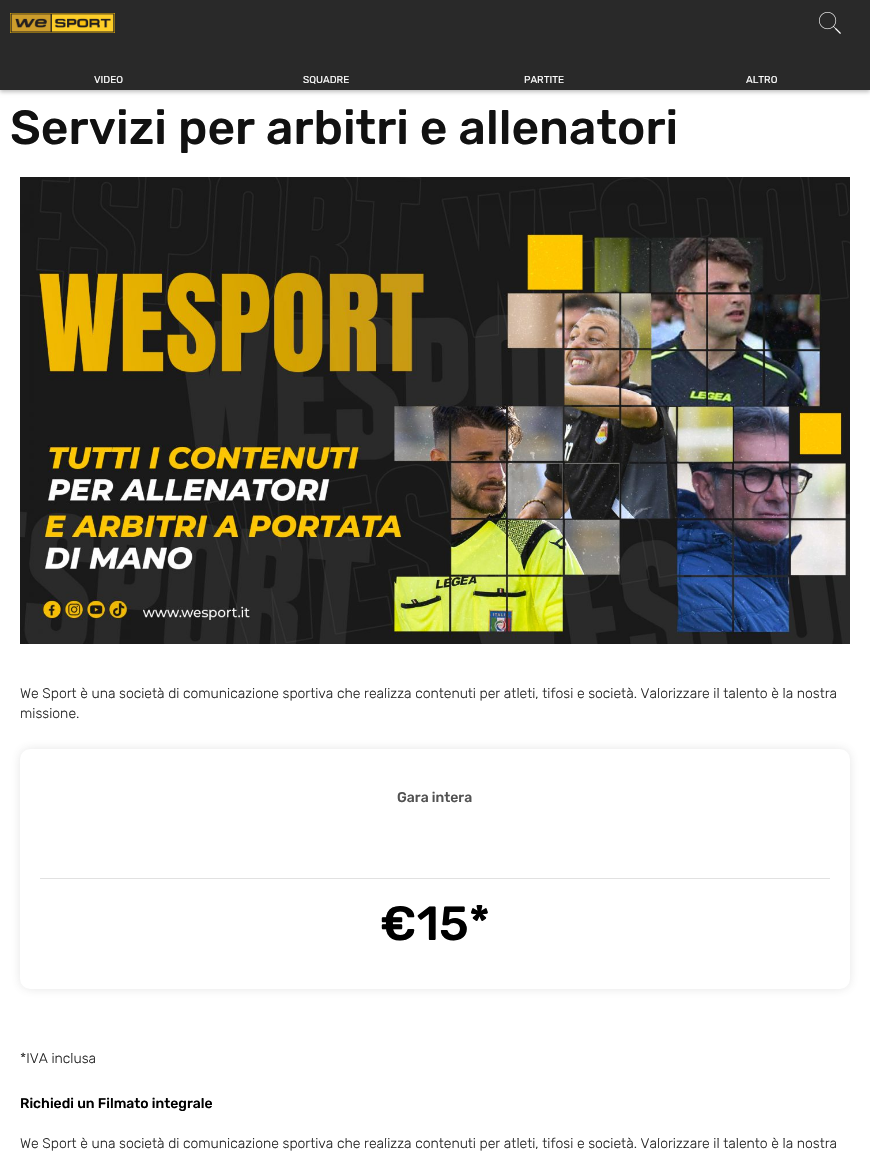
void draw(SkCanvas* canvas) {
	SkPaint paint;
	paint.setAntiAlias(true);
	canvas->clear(0xffffffff);
	paint.setColor(0x40000000);
	paint.setMaskFilter(SkMaskFilter::MakeBlur(kNormal_SkBlurStyle, 2));
	canvas->drawRect(SkRect::MakeXYWH(0, 2, 870, 90), paint);
	paint.setMaskFilter(nullptr);
	paint.setColor(0xff292929);
	canvas->drawRect(SkRect::MakeXYWH(0, 0, 870, 90), paint);
	canvas->drawImageRect(SkImages::DeferredFromEncodedData(SkData::MakeFromFileName("img1.png")), SkRect::MakeXYWH(10, 13, 105, 20), SkSamplingOptions());
	canvas->drawImageRect(SkImages::DeferredFromEncodedData(SkData::MakeFromFileName("img2.png")), SkRect::MakeXYWH(819, 12, 22, 22), SkSamplingOptions());
	SkFont f1(fontMgr->matchFamilyStyle("Rubik", SkFontStyle::Normal()), 10);
	f1.setSubpixel(true);
	paint.setColor(0xffffffff);
	canvas->drawString("VIDEO", 94, 83, f1, paint);
	canvas->drawString("SQUADRE", 303, 83, f1, paint);
	canvas->drawString("PARTITE", 524, 83, f1, paint);
	canvas->drawString("ALTRO", 746, 83, f1, paint);
	SkFont f2(fontMgr->matchFamilyStyle("Rubik", SkFontStyle(500, SkFontStyle::kNormal_Width, SkFontStyle::kUpright_Slant)), 48);
	f2.setSubpixel(true);
	paint.setColor(0xff111111);
	canvas->drawString("Servizi per arbitri e allenatori", 10, 144, f2, paint);
	canvas->drawImageRect(SkImages::DeferredFromEncodedData(SkData::MakeFromFileName("img3.png")), SkRect::MakeXYWH(20, 177, 830, 467), SkSamplingOptions());
	SkFont f3(fontMgr->matchFamilyStyle("Rubik", SkFontStyle(300, SkFontStyle::kNormal_Width, SkFontStyle::kUpright_Slant)), 14);
	f3.setSubpixel(true);
	paint.setColor(0xff292929);
	canvas->drawString("We Sport è una società di comunicazione sportiva che realizza contenuti per atleti, tifosi e società. Valorizzare il talento è la nostra", 20, 698, f3, paint);
	canvas->drawString("missione.", 20, 718, f3, paint);
	paint.setColor(0x26525252);
	paint.setMaskFilter(SkMaskFilter::MakeBlur(kNormal_SkBlurStyle, 5));
	canvas->drawRoundRect(SkRect::MakeXYWH(20, 749, 830, 240), 10, 10, paint);
	paint.setMaskFilter(nullptr);
	paint.setColor(0xffffffff);
	canvas->drawRoundRect(SkRect::MakeXYWH(20, 749, 830, 240), 10, 10, paint);
	paint.setColor(0xffe1e1e1);
	canvas->drawRect(SkRect::MakeXYWH(40, 878, 790, 1), paint);
	SkFont f4(fontMgr->matchFamilyStyle("Rubik", SkFontStyle(500, SkFontStyle::kNormal_Width, SkFontStyle::kUpright_Slant)), 14);
	f4.setSubpixel(true);
	paint.setColor(0xff525252);
	canvas->drawString("Gara intera", 397, 802, f4, paint);
	paint.setColor(0xff000000);
	canvas->drawString("€15*", 380, 940, f2, paint);
	paint.setColor(0xff292929);
	canvas->drawString("*IVA inclusa", 20, 1063, f3, paint);
	paint.setColor(0xff000000);
	canvas->drawString("Richiedi un Filmato integrale", 20, 1108, f4, paint);
	paint.setColor(0xff292929);
	canvas->drawString("We Sport è una società di comunicazione sportiva che realizza contenuti per atleti, tifosi e società. Valorizzare il talento è la nostra", 20, 1148, f3, paint);
}
